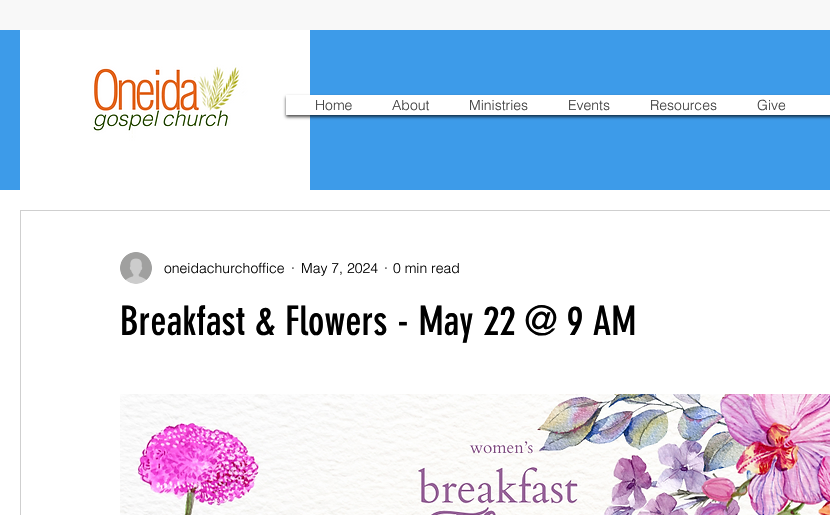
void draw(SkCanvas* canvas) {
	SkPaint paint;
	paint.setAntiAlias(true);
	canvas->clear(0xffffffff);
	paint.setColor(0xfff8f8f8);
	canvas->drawRect(SkRect::MakeXYWH(0, 0, 830, 30), paint);
	paint.setColor(0xff3d9be9);
	canvas->drawRect(SkRect::MakeXYWH(0, 30, 20, 160), paint);
	canvas->drawImageRect(SkImages::DeferredFromEncodedData(SkData::MakeFromFileName("img1.png")), SkRect::MakeXYWH(20, 30, 290, 160), SkSamplingOptions());
	canvas->drawRect(SkRect::MakeXYWH(310, 30, 520, 160), paint);
	paint.setColor(0xb3000000);
	paint.setMaskFilter(SkMaskFilter::MakeBlur(kNormal_SkBlurStyle, 1.5));
	canvas->drawRect(SkRect::MakeXYWH(286, 97, 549, 20), paint);
	paint.setMaskFilter(nullptr);
	paint.setColor(0xffffffff);
	canvas->drawRect(SkRect::MakeXYWH(286, 95, 544, 20), paint);
	SkFont f1(fontMgr->matchFamilyStyle("helvetica", SkFontStyle(300, SkFontStyle::kNormal_Width, SkFontStyle::kUpright_Slant)), 14);
	f1.setSubpixel(true);
	paint.setColor(0xff404040);
	canvas->drawString("Home", 315, 110, f1, paint);
	canvas->drawString("About", 392, 110, f1, paint);
	canvas->drawString("Ministries", 469, 110, f1, paint);
	canvas->drawString("Events", 568, 110, f1, paint);
	canvas->drawString("Resources", 650, 110, f1, paint);
	canvas->drawString("Give", 757, 110, f1, paint);
	paint.setStroke(true);
	paint.setStrokeWidth(1);
	paint.setColor(0xffcfcfcf);
	canvas->drawRect(SkRect::MakeXYWH(20.5, 210.5, 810, 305), paint);
	canvas->drawImageRect(SkImages::DeferredFromEncodedData(SkData::MakeFromFileName("img2.png")), SkRect::MakeXYWH(120, 252, 32, 32), SkSamplingOptions());
	paint.setStroke(false);
	paint.setColor(0xff000000);
	canvas->drawString("oneidachurchoffice", 164, 273, f1, paint);
	canvas->drawString("·", 291, 273, f1, paint);
	canvas->drawString("May 7, 2024", 301, 273, f1, paint);
	canvas->drawString("·", 384, 273, f1, paint);
	canvas->drawString("0 min read", 393, 273, f1, paint);
	SkFont f2(fontMgr->matchFamilyStyle("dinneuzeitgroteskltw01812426", SkFontStyle::Normal()), 40);
	f2.setSubpixel(true);
	canvas->drawString("Breakfast & Flowers - May 22 @ 9 AM", 120, 335, f2, paint);
	canvas->drawImageRect(SkImages::DeferredFromEncodedData(SkData::MakeFromFileName("img3.png")), SkRect::MakeXYWH(120, 394, 710, 121), SkSamplingOptions());
}
